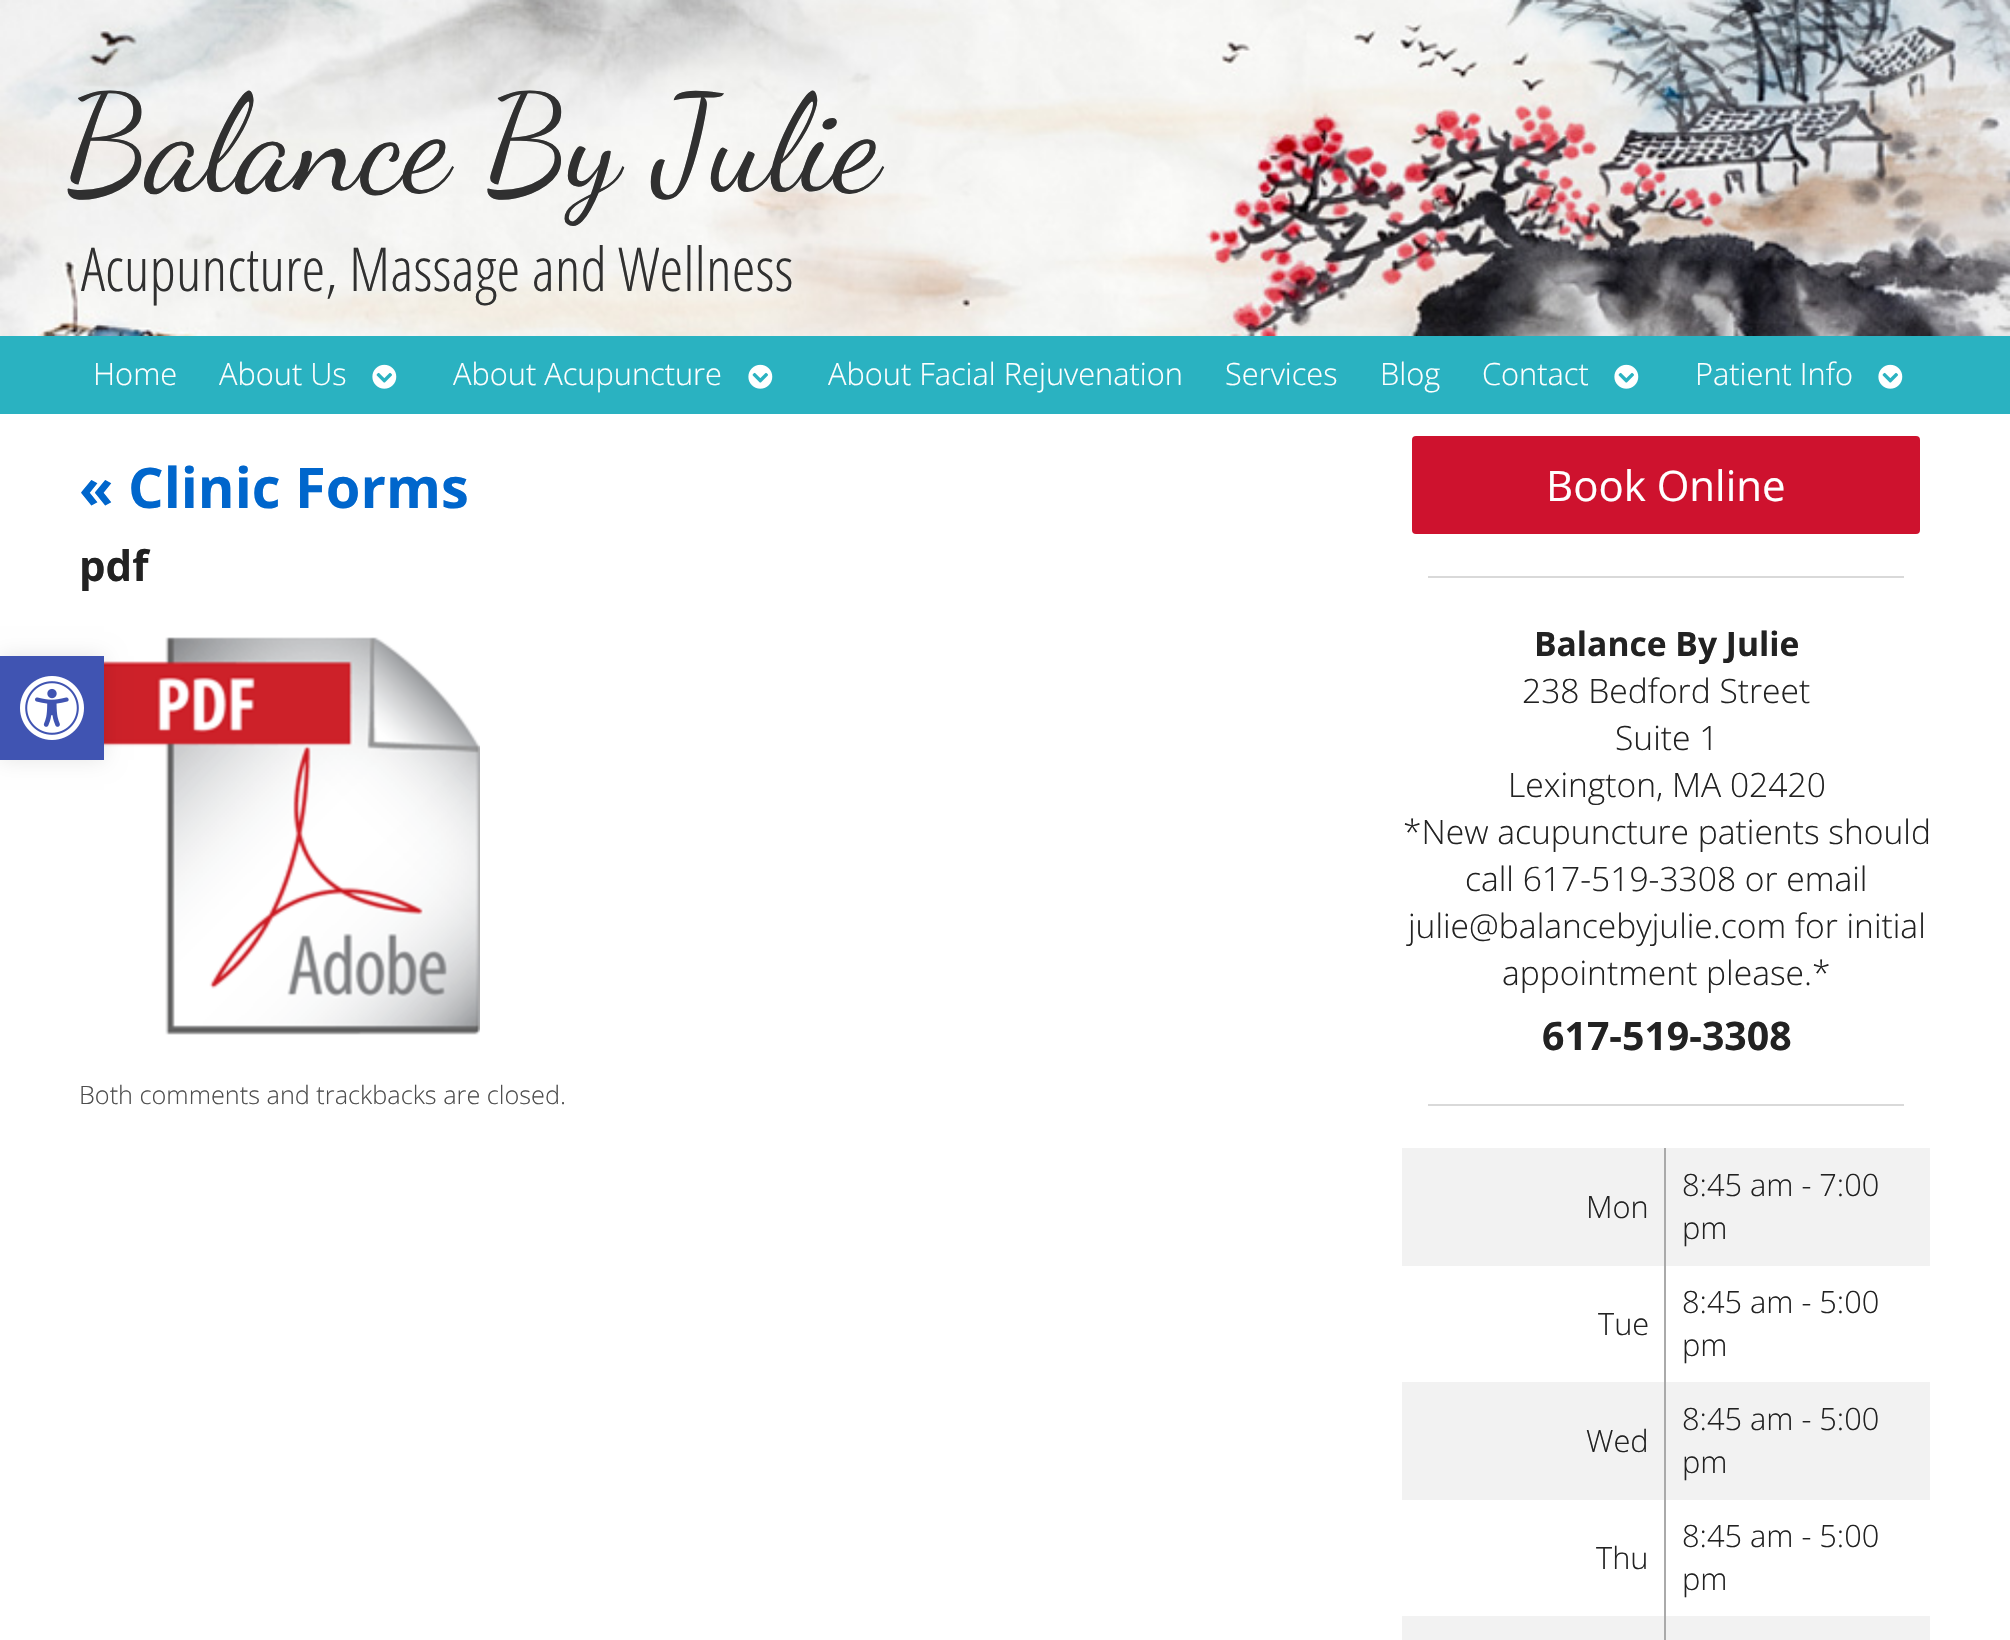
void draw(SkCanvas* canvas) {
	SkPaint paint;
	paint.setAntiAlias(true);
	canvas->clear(0xffffffff);
	canvas->drawImageRect(SkImages::DeferredFromEncodedData(SkData::MakeFromFileName("img1.png")), SkRect::MakeXYWH(0, 0, 2010, 336), SkSamplingOptions());
	SkFont f1(fontMgr->matchFamilyStyle("Dancing Script", SkFontStyle::Normal()), 135.5);
	f1.setSubpixel(true);
	paint.setColor(0xff303030);
	canvas->drawString("Balance By Julie", 65, 188, f1, paint);
	SkFont f2(fontMgr->matchFamilyStyle("Open Sans Condensed", SkFontStyle(300, SkFontStyle::kNormal_Width, SkFontStyle::kUpright_Slant)), 60.5);
	f2.setSubpixel(true);
	canvas->drawString("Acupuncture, Massage and Wellness", 81, 291, f2, paint);
	paint.setColor(0xff2ab2c1);
	canvas->drawRect(SkRect::MakeXYWH(0, 336, 2010, 78), paint);
	SkFont f3(fontMgr->matchFamilyStyle("Open Sans", SkFontStyle(300, SkFontStyle::kNormal_Width, SkFontStyle::kUpright_Slant)), 30.75);
	f3.setSubpixel(true);
	paint.setColor(0xffffffff);
	canvas->drawString("Home", 93, 385, f3, paint);
	canvas->drawString("About Us", 219, 385, f3, paint);
	canvas->drawImageRect(SkImages::DeferredFromEncodedData(SkData::MakeFromFileName("img2.png")), SkRect::MakeXYWH(372, 364, 25, 25), SkSamplingOptions());
	canvas->drawString("About Acupuncture", 453, 385, f3, paint);
	canvas->drawImageRect(SkImages::DeferredFromEncodedData(SkData::MakeFromFileName("img2.png")), SkRect::MakeXYWH(748, 364, 25, 25), SkSamplingOptions());
	canvas->drawString("About Facial Rejuvenation", 828, 385, f3, paint);
	canvas->drawString("Services", 1225, 385, f3, paint);
	canvas->drawString("Blog", 1380, 385, f3, paint);
	canvas->drawString("Contact", 1482, 385, f3, paint);
	canvas->drawImageRect(SkImages::DeferredFromEncodedData(SkData::MakeFromFileName("img2.png")), SkRect::MakeXYWH(1614, 364, 25, 25), SkSamplingOptions());
	canvas->drawString("Patient Info", 1695, 385, f3, paint);
	canvas->drawImageRect(SkImages::DeferredFromEncodedData(SkData::MakeFromFileName("img2.png")), SkRect::MakeXYWH(1878, 364, 25, 25), SkSamplingOptions());
	SkFont f4(fontMgr->matchFamilyStyle("Open Sans", SkFontStyle::Bold()), 56);
	f4.setSubpixel(true);
	paint.setColor(0xff0066cc);
	canvas->drawString("« Clinic Forms", 79, 508, f4, paint);
	SkFont f5(fontMgr->matchFamilyStyle("Open Sans", SkFontStyle::Bold()), 42);
	f5.setSubpixel(true);
	paint.setColor(0xff222222);
	canvas->drawString("pdf", 79, 581, f5, paint);
	canvas->drawImageRect(SkImages::DeferredFromEncodedData(SkData::MakeFromFileName("img3.png")), SkRect::MakeXYWH(80, 637, 400, 398), SkSamplingOptions());
	SkFont f6(fontMgr->matchFamilyStyle("Open Sans", SkFontStyle(300, SkFontStyle::kNormal_Width, SkFontStyle::kUpright_Slant)), 25.25);
	f6.setSubpixel(true);
	paint.setColor(0xff4e4e4e);
	canvas->drawString("Both comments and trackbacks are closed.", 79, 1104, f6, paint);
	paint.setColor(0xffce122e);
	canvas->drawRoundRect(SkRect::MakeXYWH(1412, 436, 508, 98), 4, 4, paint);
	SkFont f7(fontMgr->matchFamilyStyle("Open Sans", SkFontStyle::Normal()), 42);
	f7.setSubpixel(true);
	paint.setColor(0xffffffff);
	canvas->drawString("Book Online", 1546, 501, f7, paint);
	paint.setColor(0xffd9d9d9);
	canvas->drawRect(SkRect::MakeXYWH(1428, 576, 476, 2), paint);
	SkFont f8(fontMgr->matchFamilyStyle("Open Sans", SkFontStyle::Bold()), 33.6);
	f8.setSubpixel(true);
	paint.setColor(0xff222222);
	canvas->drawString("Balance By Julie", 1534, 656, f8, paint);
	SkFont f9(fontMgr->matchFamilyStyle("Open Sans", SkFontStyle(300, SkFontStyle::kNormal_Width, SkFontStyle::kUpright_Slant)), 33.6);
	f9.setSubpixel(true);
	canvas->drawString("238 Bedford Street", 1522, 703, f9, paint);
	canvas->drawString("Suite 1", 1615, 750, f9, paint);
	canvas->drawString("Lexington, MA 02420", 1508, 797, f9, paint);
	canvas->drawString("*New acupuncture patients should", 1403, 844, f9, paint);
	canvas->drawString("call 617-519-3308 or email", 1465, 891, f9, paint);
	canvas->drawString("julie@balancebyjulie.com for initial", 1408, 938, f9, paint);
	canvas->drawString("appointment please.*", 1502, 985, f9, paint);
	SkFont f10(fontMgr->matchFamilyStyle("Open Sans", SkFontStyle::Bold()), 39.25);
	f10.setSubpixel(true);
	canvas->drawString("617-519-3308", 1542, 1050, f10, paint);
	paint.setColor(0xffd9d9d9);
	canvas->drawRect(SkRect::MakeXYWH(1428, 1104, 476, 2), paint);
	paint.setColor(0xfff2f2f2);
	canvas->drawRect(SkRect::MakeXYWH(1402, 1148, 528, 118), paint);
	canvas->drawRect(SkRect::MakeXYWH(1402, 1382, 528, 118), paint);
	canvas->drawRect(SkRect::MakeXYWH(1402, 1616, 528, 24), paint);
	paint.setColor(0xffaaaaaa);
	canvas->drawRect(SkRect::MakeXYWH(1664, 1148, 2, 492), paint);
	paint.setColor(0xff222222);
	canvas->drawString("Mon", 1586, 1218, f3, paint);
	canvas->drawString("8:45 am - 7:00", 1682, 1196, f3, paint);
	canvas->drawString("pm", 1682, 1239, f3, paint);
	canvas->drawString("Tue", 1598, 1335, f3, paint);
	canvas->drawString("8:45 am - 5:00", 1682, 1313, f3, paint);
	canvas->drawString("pm", 1682, 1356, f3, paint);
	canvas->drawString("Wed", 1586, 1452, f3, paint);
	canvas->drawString("8:45 am - 5:00", 1682, 1430, f3, paint);
	canvas->drawString("pm", 1682, 1473, f3, paint);
	canvas->drawString("Thu", 1596, 1569, f3, paint);
	canvas->drawString("8:45 am - 5:00", 1682, 1547, f3, paint);
	canvas->drawString("pm", 1682, 1590, f3, paint);
	paint.setColor(0x1a000000);
	paint.setMaskFilter(SkMaskFilter::MakeBlur(kNormal_SkBlurStyle, 10));
	canvas->drawRect(SkRect::MakeXYWH(0, 656, 104, 104), paint);
	paint.setMaskFilter(nullptr);
	paint.setColor(0xff4054b2);
	canvas->drawRect(SkRect::MakeXYWH(0, 656, 104, 104), paint);
	canvas->drawImageRect(SkImages::DeferredFromEncodedData(SkData::MakeFromFileName("img4.png")), SkRect::MakeXYWH(20, 676, 64, 64), SkSamplingOptions());
}
